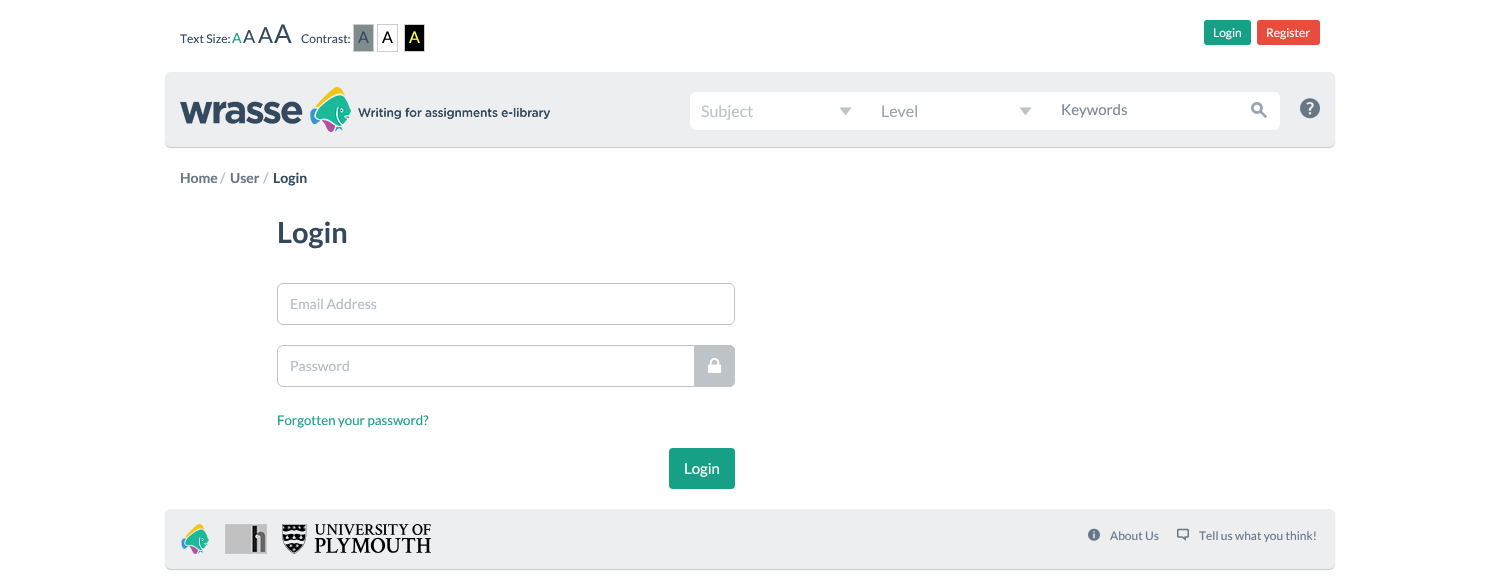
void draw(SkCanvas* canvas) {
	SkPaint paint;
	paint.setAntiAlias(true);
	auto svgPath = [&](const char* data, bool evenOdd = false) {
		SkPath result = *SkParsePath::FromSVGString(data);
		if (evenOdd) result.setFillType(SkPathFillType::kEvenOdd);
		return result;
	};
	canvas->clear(0xffffffff);
	SkFont f1(fontMgr->matchFamilyStyle("Lato", SkFontStyle::Normal()), 12);
	f1.setSubpixel(true);
	paint.setColor(0xff34495e);
	canvas->drawString("Text Size:", 180, 43, f1, paint);
	SkFont f2(fontMgr->matchFamilyStyle("Lato", SkFontStyle::Normal()), 14);
	f2.setSubpixel(true);
	paint.setColor(0xff16a085);
	canvas->drawString("A", 232, 43, f2, paint);
	SkFont f3(fontMgr->matchFamilyStyle("Lato", SkFontStyle::Normal()), 18);
	f3.setSubpixel(true);
	paint.setColor(0xff34495e);
	canvas->drawString("A", 243, 43, f3, paint);
	SkFont f4(fontMgr->matchFamilyStyle("Lato", SkFontStyle::Normal()), 22);
	f4.setSubpixel(true);
	canvas->drawString("A", 258, 43, f4, paint);
	SkFont f5(fontMgr->matchFamilyStyle("Lato", SkFontStyle::Normal()), 26);
	f5.setSubpixel(true);
	canvas->drawString("A", 274, 43, f5, paint);
	canvas->drawString("Contrast:", 301, 43, f1, paint);
	paint.setColor(0xff7f8c8d);
	canvas->drawRect(SkRect::MakeXYWH(353.5, 24.5, 20, 27), paint);
	paint.setStroke(true);
	paint.setStrokeWidth(1);
	paint.setColor(0xffcccccc);
	canvas->drawRect(SkRect::MakeXYWH(353.5, 24.5, 20, 27), paint);
	SkFont f6(fontMgr->matchFamilyStyle("Lato", SkFontStyle::Normal()), 16);
	f6.setSubpixel(true);
	paint.setStroke(false);
	paint.setColor(0xff34495e);
	canvas->drawString("A", 358, 43, f6, paint);
	paint.setStroke(true);
	paint.setColor(0xffcccccc);
	canvas->drawRect(SkRect::MakeXYWH(377.5, 24.5, 20, 27), paint);
	paint.setStroke(false);
	paint.setColor(0xff000000);
	canvas->drawString("A", 382, 43, f6, paint);
	canvas->drawRect(SkRect::MakeXYWH(404.5, 24.5, 20, 27), paint);
	paint.setStroke(true);
	paint.setColor(0xffcccccc);
	canvas->drawRect(SkRect::MakeXYWH(404.5, 24.5, 20, 27), paint);
	paint.setStroke(false);
	paint.setColor(0xffffff40);
	canvas->drawString("A", 409, 43, f6, paint);
	paint.setColor(0xff16a085);
	canvas->drawRoundRect(SkRect::MakeXYWH(1204, 20, 47, 25), 3, 3, paint);
	paint.setColor(0xffffffff);
	canvas->drawString("Login", 1213, 37, f1, paint);
	paint.setColor(0xffe74c3c);
	canvas->drawRoundRect(SkRect::MakeXYWH(1257, 20, 63, 25), 3, 3, paint);
	paint.setColor(0xffffffff);
	canvas->drawString("Register", 1266, 37, f1, paint);
	paint.setColor(0xbfb4b4b4);
	paint.setMaskFilter(SkMaskFilter::MakeBlur(kNormal_SkBlurStyle, 0.5));
	canvas->drawRoundRect(SkRect::MakeXYWH(165, 73, 1170, 75), 6, 6, paint);
	paint.setMaskFilter(nullptr);
	paint.setColor(0xffeceef0);
	canvas->drawRoundRect(SkRect::MakeXYWH(165, 72, 1170, 75), 6, 6, paint);
	canvas->drawImageRect(SkImages::DeferredFromEncodedData(SkData::MakeFromFileName("img1.png")), SkRect::MakeXYWH(180, 87, 370, 45), SkSamplingOptions());
	paint.setColor(0xffffffff);
	canvas->drawRoundRect(SkRect::MakeXYWH(690, 92, 590, 38), 6, 6, paint);
	paint.setColor(0xffbdc3c7);
	canvas->drawString("Subject", 701, 117, f6, paint);
	canvas->drawPath(svgPath("M839.5 107.5H851.5L845.5 115.5Z"), paint);
	paint.setColor(0xff9aa4af);
	canvas->drawString("Level", 881, 117, f6, paint);
	paint.setColor(0xffbdc3c7);
	canvas->drawPath(svgPath("M1019.5 107.5H1031.5L1025.5 115.5Z"), paint);
	SkFont f7(fontMgr->matchFamilyStyle("Lato", SkFontStyle::Normal()), 15);
	f7.setSubpixel(true);
	paint.setColor(0xff798795);
	canvas->drawString("Keywords", 1061, 115, f7, paint);
	paint.setColor(0xffffffff);
	canvas->drawPath(svgPath("M1240 92H1274C1277.5 92 1280 94.5 1280 98V121C1280 124.5 1277.5 127 1274 127H1240Z"), paint);
	canvas->drawImageRect(SkImages::DeferredFromEncodedData(SkData::MakeFromFileName("img2.png")), SkRect::MakeXYWH(1251, 102, 16, 16), SkSamplingOptions());
	canvas->drawImageRect(SkImages::DeferredFromEncodedData(SkData::MakeFromFileName("img3.png")), SkRect::MakeXYWH(1300, 98, 20, 21), SkSamplingOptions());
	SkFont f8(fontMgr->matchFamilyStyle("Lato", SkFontStyle::Bold()), 14);
	f8.setSubpixel(true);
	paint.setColor(0xff677786);
	canvas->drawString("Home", 180, 183, f8, paint);
	paint.setColor(0xffbdc3c7);
	canvas->drawString("/", 220, 183, f8, paint);
	paint.setColor(0xff677786);
	canvas->drawString("User", 230, 183, f8, paint);
	paint.setColor(0xffbdc3c7);
	canvas->drawString("/", 263, 183, f8, paint);
	paint.setColor(0xff34495e);
	canvas->drawString("Login", 273, 183, f8, paint);
	SkFont f9(fontMgr->matchFamilyStyle("Lato", SkFontStyle::Bold()), 29);
	f9.setSubpixel(true);
	canvas->drawString("Login", 277, 243, f9, paint);
	paint.setStroke(true);
	paint.setColor(0xffbdc3c7);
	canvas->drawRoundRect(SkRect::MakeXYWH(277.5, 283.5, 457, 41), 5.5, 5.5, paint);
	paint.setStroke(false);
	paint.setColor(0xffb2bcc5);
	canvas->drawString("Email Address", 290, 309, f2, paint);
	paint.setStroke(true);
	paint.setColor(0xffbdc3c7);
	canvas->drawPath(svgPath("M283 345.5H694.5V386.5H283C280 386.5 277.5 384 277.5 381V351C277.5 348 280 345.5 283 345.5Z"), paint);
	paint.setStroke(false);
	paint.setColor(0xffb2bcc5);
	canvas->drawString("Password", 290, 371, f2, paint);
	paint.setColor(0xffbdc3c7);
	canvas->drawPath(svgPath("M695 345H729C732.5 345 735 347.5 735 351V381C735 384.5 732.5 387 729 387H695Z"), paint);
	canvas->drawPath(svgPath("M695 345H729C732 345 735 348 735 351V381C735 384 732 387 729 387H695ZM695 346H729C732 346 734 348 734 351V381C734 384 732 386 729 386H695Z", true), paint);
	canvas->drawImageRect(SkImages::DeferredFromEncodedData(SkData::MakeFromFileName("img4.png")), SkRect::MakeXYWH(707, 358, 15, 15), SkSamplingOptions());
	SkFont f10(fontMgr->matchFamilyStyle("Lato", SkFontStyle::Normal()), 13.25);
	f10.setSubpixel(true);
	paint.setColor(0xff16a085);
	canvas->drawString("Forgotten your password?", 277, 425, f10, paint);
	canvas->drawRoundRect(SkRect::MakeXYWH(669, 448, 66, 41), 4, 4, paint);
	paint.setColor(0xffffffff);
	canvas->drawString("Login", 684, 474, f7, paint);
	paint.setColor(0xbfb4b4b4);
	paint.setMaskFilter(SkMaskFilter::MakeBlur(kNormal_SkBlurStyle, 0.5));
	canvas->drawRoundRect(SkRect::MakeXYWH(165, 510, 1170, 60), 6, 6, paint);
	paint.setMaskFilter(nullptr);
	paint.setColor(0xffeceef0);
	canvas->drawRoundRect(SkRect::MakeXYWH(165, 509, 1170, 60), 6, 6, paint);
	canvas->drawImageRect(SkImages::DeferredFromEncodedData(SkData::MakeFromFileName("img5.png")), SkRect::MakeXYWH(181, 524, 28, 30), SkSamplingOptions());
	canvas->drawImageRect(SkImages::DeferredFromEncodedData(SkData::MakeFromFileName("img6.png")), SkRect::MakeXYWH(225, 524, 42, 30), SkSamplingOptions());
	canvas->drawImageRect(SkImages::DeferredFromEncodedData(SkData::MakeFromFileName("img7.png")), SkRect::MakeXYWH(282, 524, 149, 30), SkSamplingOptions());
	canvas->drawImageRect(SkImages::DeferredFromEncodedData(SkData::MakeFromFileName("img8.png")), SkRect::MakeXYWH(1088, 528, 12, 13), SkSamplingOptions());
	paint.setColor(0xff677786);
	canvas->drawString("About Us", 1110, 540, f1, paint);
	canvas->drawImageRect(SkImages::DeferredFromEncodedData(SkData::MakeFromFileName("img9.png")), SkRect::MakeXYWH(1177, 528, 12, 13), SkSamplingOptions());
	canvas->drawString("Tell us what you think!", 1199, 540, f1, paint);
}
